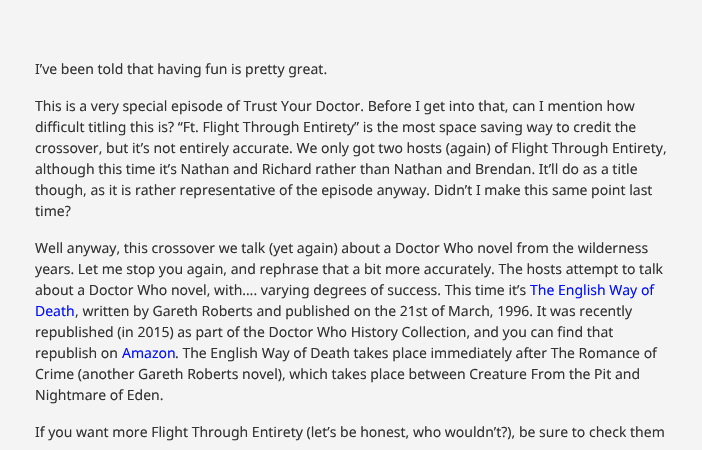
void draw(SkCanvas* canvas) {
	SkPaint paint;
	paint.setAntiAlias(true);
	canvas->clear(0xfff4f4f4);
	SkFont f1(fontMgr->matchFamilyStyle("Noto Sans", SkFontStyle::Normal()), 14);
	f1.setSubpixel(true);
	paint.setColor(0xff333333);
	canvas->drawString("I’ve been told that having fun is pretty great.", 35, 74, f1, paint);
	canvas->drawString("This is a very special episode of Trust Your Doctor. Before I get into that, can I mention how", 35, 111, f1, paint);
	canvas->drawString("difficult titling this is? “Ft. Flight Through Entirety” is the most space saving way to credit the", 35, 132, f1, paint);
	canvas->drawString("crossover, but it’s not entirely accurate. We only got two hosts (again) of Flight Through Entirety,", 35, 153, f1, paint);
	canvas->drawString("although this time it’s Nathan and Richard rather than Nathan and Brendan. It’ll do as a title", 35, 174, f1, paint);
	canvas->drawString("though, as it is rather representative of the episode anyway. Didn’t I make this same point last", 35, 195, f1, paint);
	canvas->drawString("time?", 35, 216, f1, paint);
	canvas->drawString("Well anyway, this crossover we talk (yet again) about a Doctor Who novel from the wilderness", 35, 253, f1, paint);
	canvas->drawString("years. Let me stop you again, and rephrase that a bit more accurately. The hosts attempt to talk", 35, 274, f1, paint);
	canvas->drawString("about a Doctor Who novel, with…. varying degrees of success. This time it’s", 35, 295, f1, paint);
	paint.setColor(0xff0010ff);
	canvas->drawString("The English Way of", 530, 295, f1, paint);
	canvas->drawString("Death", 35, 316, f1, paint);
	paint.setColor(0xff333333);
	canvas->drawString(", written by Gareth Roberts and published on the 21st of March, 1996. It was recently", 75, 316, f1, paint);
	canvas->drawString("republished (in 2015) as part of the Doctor Who History Collection, and you can find that", 35, 337, f1, paint);
	canvas->drawString("republish on", 35, 358, f1, paint);
	paint.setColor(0xff0010ff);
	canvas->drawString("Amazon", 122, 358, f1, paint);
	paint.setColor(0xff333333);
	canvas->drawString(". The English Way of Death takes place immediately after The Romance of", 175, 358, f1, paint);
	canvas->drawString("Crime (another Gareth Roberts novel), which takes place between Creature From the Pit and", 35, 379, f1, paint);
	canvas->drawString("Nightmare of Eden.", 35, 400, f1, paint);
	canvas->drawString("If you want more Flight Through Entirety (let’s be honest, who wouldn’t?), be sure to check them", 35, 437, f1, paint);
}
